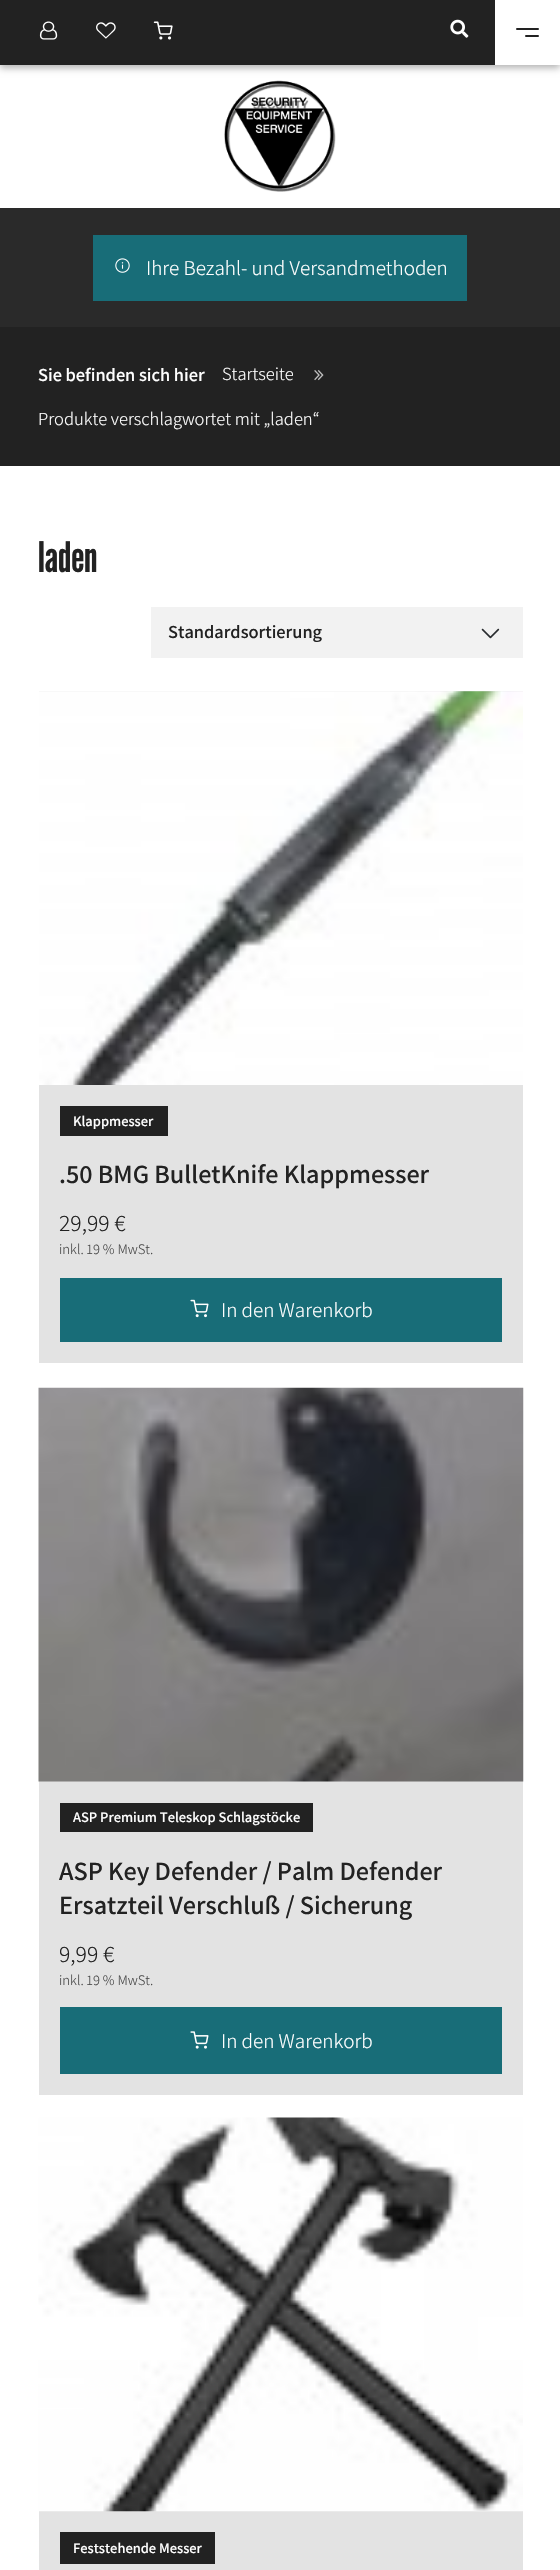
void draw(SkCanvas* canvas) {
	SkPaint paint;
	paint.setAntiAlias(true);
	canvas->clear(0xffffffff);
	paint.setColor(0x4d000000);
	paint.setMaskFilter(SkMaskFilter::MakeBlur(kNormal_SkBlurStyle, 3.5));
	canvas->drawRect(SkRect::MakeXYWH(0, 4, 560, 64), paint);
	paint.setMaskFilter(nullptr);
	paint.setColor(0xff222222);
	canvas->drawRect(SkRect::MakeXYWH(0, 0, 495, 65), paint);
	canvas->drawImageRect(SkImages::DeferredFromEncodedData(SkData::MakeFromFileName("img1.png")), SkRect::MakeXYWH(39, 21, 19, 19), SkSamplingOptions());
	canvas->drawImageRect(SkImages::DeferredFromEncodedData(SkData::MakeFromFileName("img2.png")), SkRect::MakeXYWH(96, 22, 20, 17), SkSamplingOptions());
	canvas->drawImageRect(SkImages::DeferredFromEncodedData(SkData::MakeFromFileName("img3.png")), SkRect::MakeXYWH(153, 21, 20, 19), SkSamplingOptions());
	canvas->drawImageRect(SkImages::DeferredFromEncodedData(SkData::MakeFromFileName("img4.png")), SkRect::MakeXYWH(450, 19, 19, 19), SkSamplingOptions());
	paint.setColor(0xffffffff);
	canvas->drawRect(SkRect::MakeXYWH(495, 0, 65, 65), paint);
	paint.setColor(0xff222222);
	canvas->drawRoundRect(SkRect::MakeXYWH(516, 28, 23, 2), 1, 1, paint);
	canvas->drawRoundRect(SkRect::MakeXYWH(525, 35, 14, 2), 1, 1, paint);
	canvas->drawImageRect(SkImages::DeferredFromEncodedData(SkData::MakeFromFileName("img5.png")), SkRect::MakeXYWH(224, 80, 112, 112), SkSamplingOptions());
	paint.setColor(0xff2a2a2a);
	canvas->drawRect(SkRect::MakeXYWH(0, 208, 560, 119), paint);
	paint.setColor(0xff186d78);
	canvas->drawRect(SkRect::MakeXYWH(93, 235, 374, 66), paint);
	canvas->drawImageRect(SkImages::DeferredFromEncodedData(SkData::MakeFromFileName("img6.png")), SkRect::MakeXYWH(115, 258, 15, 15), SkSamplingOptions());
	SkFont f1(fontMgr->matchFamilyStyle("Assistant", SkFontStyle(200, SkFontStyle::kNormal_Width, SkFontStyle::kUpright_Slant)), 21);
	f1.setSubpixel(true);
	paint.setColor(0xffffffff);
	canvas->drawString("Ihre Bezahl- und Versandmethoden", 146, 275, f1, paint);
	paint.setColor(0xff222222);
	canvas->drawRect(SkRect::MakeXYWH(0, 327, 560, 139), paint);
	SkFont f2(fontMgr->matchFamilyStyle("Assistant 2", SkFontStyle(200, SkFontStyle::kNormal_Width, SkFontStyle::kUpright_Slant)), 18.4);
	f2.setSubpixel(true);
	paint.setColor(0xffffffff);
	canvas->drawString("Sie befinden sich hier", 38, 381, f2, paint);
	SkFont f3(fontMgr->matchFamilyStyle("Assistant", SkFontStyle(200, SkFontStyle::kNormal_Width, SkFontStyle::kUpright_Slant)), 18.4);
	f3.setSubpixel(true);
	canvas->drawString("Startseite", 222, 380, f3, paint);
	canvas->drawImageRect(SkImages::DeferredFromEncodedData(SkData::MakeFromFileName("img7.png")), SkRect::MakeXYWH(314, 370, 10, 11), SkSamplingOptions());
	canvas->drawString("Produkte verschlagwortet mit „laden“", 38, 425, f3, paint);
	SkFont f4(fontMgr->matchFamilyStyle("League Gothic", SkFontStyle::Normal()), 42);
	f4.setSubpixel(true);
	paint.setColor(0xff222222);
	canvas->drawString("laden", 38, 572, f4, paint);
	paint.setColor(0xfff2f2f2);
	canvas->drawRect(SkRect::MakeXYWH(151, 607, 372, 51), paint);
	canvas->drawImageRect(SkImages::DeferredFromEncodedData(SkData::MakeFromFileName("img8.png")), SkRect::MakeXYWH(481, 628, 19, 11), SkSamplingOptions());
	paint.setColor(0xff222222);
	canvas->drawString("Standardsortierung", 168, 638, f2, paint);
	paint.setColor(0xffe3e3e3);
	canvas->drawRect(SkRect::MakeXYWH(39, 691, 484, 672), paint);
	paint.setColor(0xff222222);
	canvas->drawRect(SkRect::MakeXYWH(60, 1106, 108, 30), paint);
	SkFont f5(fontMgr->matchFamilyStyle("Assistant 2", SkFontStyle(200, SkFontStyle::kNormal_Width, SkFontStyle::kUpright_Slant)), 14.5);
	f5.setSubpixel(true);
	paint.setColor(0xffffffff);
	canvas->drawString("Klappmesser", 73, 1126, f5, paint);
	canvas->drawImageRect(SkImages::DeferredFromEncodedData(SkData::MakeFromFileName("img9.png")), SkRect::MakeXYWH(39, 691, 484, 394), SkSamplingOptions());
	SkFont f6(fontMgr->matchFamilyStyle("Assistant 2", SkFontStyle(200, SkFontStyle::kNormal_Width, SkFontStyle::kUpright_Slant)), 26.25);
	f6.setSubpixel(true);
	paint.setColor(0xff222222);
	canvas->drawString(".50 BMG BulletKnife Klappmesser", 59, 1183, f6, paint);
	SkFont f7(fontMgr->matchFamilyStyle("Assistant", SkFontStyle(200, SkFontStyle::kNormal_Width, SkFontStyle::kUpright_Slant)), 23.5);
	f7.setSubpixel(true);
	canvas->drawString("29,99 €", 59, 1231, f7, paint);
	SkFont f8(fontMgr->matchFamilyStyle("Assistant", SkFontStyle(200, SkFontStyle::kNormal_Width, SkFontStyle::kUpright_Slant)), 14.5);
	f8.setSubpixel(true);
	paint.setColor(0xff484848);
	canvas->drawString("inkl. 19 % MwSt.", 59, 1254, f8, paint);
	paint.setColor(0xff186d78);
	canvas->drawRect(SkRect::MakeXYWH(60, 1278, 442, 64), paint);
	canvas->drawImageRect(SkImages::DeferredFromEncodedData(SkData::MakeFromFileName("img10.png")), SkRect::MakeXYWH(190, 1299, 19, 19), SkSamplingOptions());
	paint.setColor(0xffffffff);
	canvas->drawString("In den Warenkorb", 221, 1317, f1, paint);
	paint.setColor(0xffe3e3e3);
	canvas->drawRect(SkRect::MakeXYWH(39, 1781, 484, 314), paint);
	paint.setColor(0xff222222);
	canvas->drawRect(SkRect::MakeXYWH(60, 1803, 253, 29), paint);
	paint.setColor(0xffffffff);
	canvas->drawString("ASP Premium Teleskop Schlagstöcke", 73, 1822, f5, paint);
	canvas->drawImageRect(SkImages::DeferredFromEncodedData(SkData::MakeFromFileName("img11.png")), SkRect::MakeXYWH(38, 1387, 486, 395), SkSamplingOptions());
	paint.setColor(0xff222222);
	canvas->drawString("ASP Key Defender / Palm Defender", 59, 1880, f6, paint);
	canvas->drawString("Ersatzteil Verschluß / Sicherung", 59, 1914, f6, paint);
	canvas->drawString("9,99 €", 59, 1962, f7, paint);
	paint.setColor(0xff484848);
	canvas->drawString("inkl. 19 % MwSt.", 59, 1985, f8, paint);
	paint.setColor(0xff186d78);
	canvas->drawRect(SkRect::MakeXYWH(60, 2007, 442, 67), paint);
	canvas->drawImageRect(SkImages::DeferredFromEncodedData(SkData::MakeFromFileName("img12.png")), SkRect::MakeXYWH(190, 2031, 19, 18), SkSamplingOptions());
	paint.setColor(0xffffffff);
	canvas->drawString("In den Warenkorb", 221, 2048, f1, paint);
	paint.setColor(0xffe3e3e3);
	canvas->drawRect(SkRect::MakeXYWH(39, 2511, 484, 59), paint);
	canvas->drawImageRect(SkImages::DeferredFromEncodedData(SkData::MakeFromFileName("img13.png")), SkRect::MakeXYWH(38, 2117, 485, 395), SkSamplingOptions());
	paint.setColor(0xff222222);
	canvas->drawRect(SkRect::MakeXYWH(60, 2532, 155, 32), paint);
	paint.setColor(0xffffffff);
	canvas->drawString("Feststehende Messer", 73, 2553, f5, paint);
}
